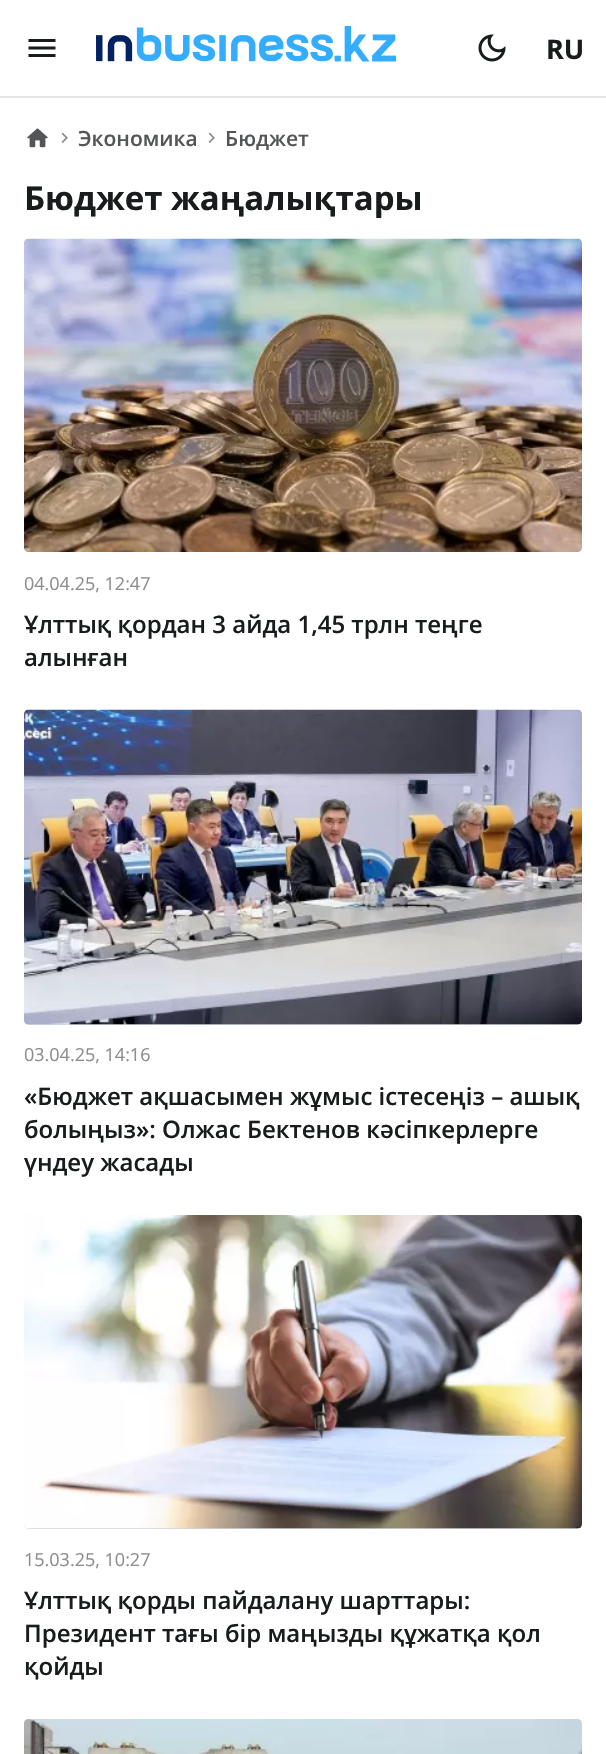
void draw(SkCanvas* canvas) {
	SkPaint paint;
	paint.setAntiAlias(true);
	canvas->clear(0xffffffff);
	paint.setColor(0xffe6e6e6);
	canvas->drawRect(SkRect::MakeXYWH(0, 96, 606, 2), paint);
	canvas->drawImageRect(SkImages::DeferredFromEncodedData(SkData::MakeFromFileName("img1.png")), SkRect::MakeXYWH(28, 39, 28, 18), SkSamplingOptions());
	canvas->drawImageRect(SkImages::DeferredFromEncodedData(SkData::MakeFromFileName("img2.png")), SkRect::MakeXYWH(96, 26, 300, 36), SkSamplingOptions());
	canvas->drawImageRect(SkImages::DeferredFromEncodedData(SkData::MakeFromFileName("img3.png")), SkRect::MakeXYWH(478, 34, 28, 28), SkSamplingOptions());
	SkFont f1(fontMgr->matchFamilyStyle("Open Sans", SkFontStyle::Bold()), 27);
	f1.setSubpixel(true);
	paint.setColor(0xff191c1d);
	canvas->drawString("RU", 546, 59, f1, paint);
	canvas->drawImageRect(SkImages::DeferredFromEncodedData(SkData::MakeFromFileName("img4.png")), SkRect::MakeXYWH(27, 128, 21, 20), SkSamplingOptions());
	canvas->drawImageRect(SkImages::DeferredFromEncodedData(SkData::MakeFromFileName("img5.png")), SkRect::MakeXYWH(61, 132, 7, 11), SkSamplingOptions());
	SkFont f2(fontMgr->matchFamilyStyle("Open Sans", SkFontStyle(600, SkFontStyle::kNormal_Width, SkFontStyle::kUpright_Slant)), 21);
	f2.setSubpixel(true);
	paint.setColor(0xff535556);
	canvas->drawString("Экономика", 78, 146, f2, paint);
	canvas->drawImageRect(SkImages::DeferredFromEncodedData(SkData::MakeFromFileName("img5.png")), SkRect::MakeXYWH(208, 132, 7, 11), SkSamplingOptions());
	canvas->drawString("Бюджет", 225, 146, f2, paint);
	SkFont f3(fontMgr->matchFamilyStyle("Open Sans", SkFontStyle::Bold()), 33);
	f3.setSubpixel(true);
	paint.setColor(0xff191c1d);
	canvas->drawString("Бюджет жаңалықтары", 24, 210, f3, paint);
	canvas->drawImageRect(SkImages::DeferredFromEncodedData(SkData::MakeFromFileName("img6.png")), SkRect::MakeXYWH(24, 238, 558, 314), SkSamplingOptions());
	SkFont f4(fontMgr->matchFamilyStyle("Open Sans", SkFontStyle::Normal()), 18);
	f4.setSubpixel(true);
	paint.setColor(0xff8c8e8e);
	canvas->drawString("04.04.25, 12:47", 24, 590, f4, paint);
	SkFont f5(fontMgr->matchFamilyStyle("Open Sans", SkFontStyle(600, SkFontStyle::kNormal_Width, SkFontStyle::kUpright_Slant)), 24);
	f5.setSubpixel(true);
	paint.setColor(0xff191c1d);
	canvas->drawString("Ұлттық қордан 3 айда 1,45 трлн теңге", 24, 633, f5, paint);
	canvas->drawString("алынған", 24, 666, f5, paint);
	paint.setColor(0xffced4da);
	canvas->drawRoundRect(SkRect::MakeXYWH(24, 710, 558, 315), 5, 5, paint);
	canvas->drawImageRect(SkImages::DeferredFromEncodedData(SkData::MakeFromFileName("img7.png")), SkRect::MakeXYWH(24, 709, 558, 316), SkSamplingOptions());
	paint.setColor(0xff8c8e8e);
	canvas->drawString("03.04.25, 14:16", 24, 1061, f4, paint);
	paint.setColor(0xff191c1d);
	canvas->drawString("«Бюджет ақшасымен жұмыс істесеңіз – ашық", 24, 1105, f5, paint);
	canvas->drawString("болыңыз»: Олжас Бектенов кәсіпкерлерге", 24, 1138, f5, paint);
	canvas->drawString("үндеу жасады", 24, 1171, f5, paint);
	paint.setColor(0xffced4da);
	canvas->drawRoundRect(SkRect::MakeXYWH(24, 1215, 558, 314), 5, 5, paint);
	canvas->drawImageRect(SkImages::DeferredFromEncodedData(SkData::MakeFromFileName("img8.png")), SkRect::MakeXYWH(24, 1215, 558, 314), SkSamplingOptions());
	paint.setColor(0xff8c8e8e);
	canvas->drawString("15.03.25, 10:27", 24, 1566, f4, paint);
	paint.setColor(0xff191c1d);
	canvas->drawString("Ұлттық қорды пайдалану шарттары:", 24, 1609, f5, paint);
	canvas->drawString("Президент тағы бір маңызды құжатқа қол", 24, 1642, f5, paint);
	canvas->drawString("қойды", 24, 1675, f5, paint);
	canvas->drawImageRect(SkImages::DeferredFromEncodedData(SkData::MakeFromFileName("img9.png")), SkRect::MakeXYWH(24, 1719, 558, 35), SkSamplingOptions());
}
